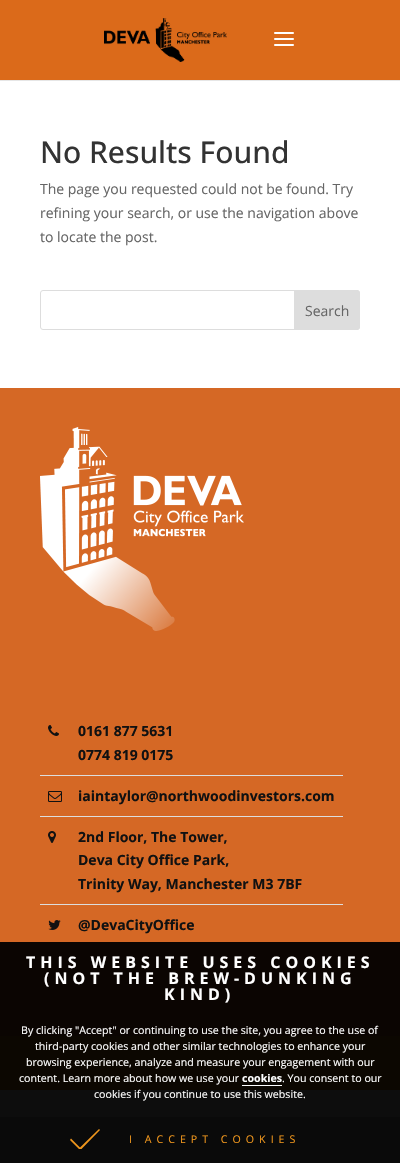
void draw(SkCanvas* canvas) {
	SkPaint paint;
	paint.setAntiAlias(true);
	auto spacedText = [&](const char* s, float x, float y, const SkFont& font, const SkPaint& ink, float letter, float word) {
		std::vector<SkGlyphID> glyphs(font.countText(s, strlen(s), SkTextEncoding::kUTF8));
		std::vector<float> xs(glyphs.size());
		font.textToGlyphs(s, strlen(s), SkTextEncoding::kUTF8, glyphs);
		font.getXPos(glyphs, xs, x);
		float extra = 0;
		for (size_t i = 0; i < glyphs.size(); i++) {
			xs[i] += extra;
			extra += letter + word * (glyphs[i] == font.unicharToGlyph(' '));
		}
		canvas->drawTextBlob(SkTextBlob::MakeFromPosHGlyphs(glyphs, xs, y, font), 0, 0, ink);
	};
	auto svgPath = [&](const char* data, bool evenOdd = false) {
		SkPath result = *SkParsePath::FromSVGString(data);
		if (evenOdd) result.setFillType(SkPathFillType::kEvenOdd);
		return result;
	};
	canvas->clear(0xffffffff);
	paint.setColor(0xff0d0d0d);
	canvas->drawRect(SkRect::MakeXYWH(0, 1090, 400, 27), paint);
	paint.setColor(0xffe6e6e6);
	canvas->drawRect(SkRect::MakeXYWH(0, 80, 400, 1), paint);
	paint.setColor(0xffdb6a1a);
	canvas->drawRect(SkRect::MakeXYWH(0, 0, 400, 80), paint);
	canvas->drawImageRect(SkImages::DeferredFromEncodedData(SkData::MakeFromFileName("img1.png")), SkRect::MakeXYWH(104, 18, 123, 44), SkSamplingOptions());
	canvas->drawImageRect(SkImages::DeferredFromEncodedData(SkData::MakeFromFileName("img2.png")), SkRect::MakeXYWH(274, 32, 20, 14), SkSamplingOptions());
	SkFont f1(fontMgr->matchFamilyStyle("Open Sans", SkFontStyle(500, SkFontStyle::kNormal_Width, SkFontStyle::kUpright_Slant)), 30);
	f1.setSubpixel(true);
	paint.setColor(0xff333333);
	canvas->drawString("No Results Found", 40, 163, f1, paint);
	SkFont f2(fontMgr->matchFamilyStyle("Open Sans", SkFontStyle::Normal()), 14);
	f2.setSubpixel(true);
	paint.setColor(0xff666666);
	canvas->drawString("The page you requested could not be found. Try", 40, 194, f2, paint);
	canvas->drawString("refining your search, or use the navigation above", 40, 218, f2, paint);
	canvas->drawString("to locate the post.", 40, 242, f2, paint);
	paint.setStroke(true);
	paint.setStrokeWidth(1);
	paint.setColor(0xffdddddd);
	canvas->drawRoundRect(SkRect::MakeXYWH(40.5, 290.5, 319, 39), 2.5, 2.5, paint);
	paint.setStroke(false);
	canvas->drawPath(svgPath("M294.5 290.5H357C358.5 290.5 359.5 291.5 359.5 293V327C359.5 328.5 358.5 329.5 357 329.5H294.5Z"), paint);
	paint.setStroke(true);
	canvas->drawPath(svgPath("M294.5 290.5H357C358.5 290.5 359.5 291.5 359.5 293V327C359.5 328.5 358.5 329.5 357 329.5H294.5Z"), paint);
	paint.setStroke(false);
	paint.setColor(0xff666666);
	canvas->drawString("Search", 305, 316, f2, paint);
	paint.setColor(0xffd56825);
	canvas->drawRect(SkRect::MakeXYWH(0, 388, 400, 554), paint);
	paint.setColor(0xff0b0502);
	canvas->drawRect(SkRect::MakeXYWH(0, 942, 400, 94), paint);
	canvas->drawImageRect(SkImages::DeferredFromEncodedData(SkData::MakeFromFileName("img3.png")), SkRect::MakeXYWH(40, 427, 204, 204), SkSamplingOptions());
	canvas->drawImageRect(SkImages::DeferredFromEncodedData(SkData::MakeFromFileName("img4.png")), SkRect::MakeXYWH(48, 725, 11, 11), SkSamplingOptions());
	SkFont f3(fontMgr->matchFamilyStyle("Open Sans", SkFontStyle::Bold()), 14);
	f3.setSubpixel(true);
	paint.setColor(0xff111111);
	canvas->drawString("0161 877 5631", 78, 736, f3, paint);
	canvas->drawString("0774 819 0175", 78, 760, f3, paint);
	canvas->drawImageRect(SkImages::DeferredFromEncodedData(SkData::MakeFromFileName("img5.png")), SkRect::MakeXYWH(48, 791, 14, 11), SkSamplingOptions());
	paint.setColor(0xffdddddd);
	canvas->drawRect(SkRect::MakeXYWH(40, 775, 303, 1), paint);
	paint.setColor(0xff111111);
	canvas->drawString("iaintaylor@northwoodinvestors.com", 78, 801, f3, paint);
	canvas->drawImageRect(SkImages::DeferredFromEncodedData(SkData::MakeFromFileName("img6.png")), SkRect::MakeXYWH(48, 831, 8, 12), SkSamplingOptions());
	paint.setColor(0xffdddddd);
	canvas->drawRect(SkRect::MakeXYWH(40, 816, 303, 1), paint);
	paint.setColor(0xff111111);
	canvas->drawString("2nd Floor, The Tower,", 78, 842, f3, paint);
	canvas->drawString("Deva City Office Park,", 78, 865, f3, paint);
	canvas->drawString("Trinity Way, Manchester M3 7BF", 78, 889, f3, paint);
	canvas->drawImageRect(SkImages::DeferredFromEncodedData(SkData::MakeFromFileName("img7.png")), SkRect::MakeXYWH(48, 920, 13, 10), SkSamplingOptions());
	paint.setColor(0xffdddddd);
	canvas->drawRect(SkRect::MakeXYWH(40, 904, 303, 1), paint);
	paint.setColor(0xff111111);
	canvas->drawString("@DevaCityOffice", 78, 930, f3, paint);
	paint.setColor(0xff0c0701);
	canvas->drawRect(SkRect::MakeXYWH(0, 1036, 400, 54), paint);
	SkFont f4(fontMgr->matchFamilyStyle("Open Sans", SkFontStyle::Bold()), 16);
	f4.setSubpixel(true);
	paint.setColor(0xffffffff);
	spacedText("THIS WEBSITE USES COOKIES", 26, 968, f4, paint, 5, 0);
	spacedText("(NOT THE BREW-DUNKING", 44, 984, f4, paint, 5, 0);
	spacedText("KIND)", 164, 1000, f4, paint, 5, 0);
	SkFont f5(fontMgr->matchFamilyStyle("Open Sans", SkFontStyle::Normal()), 10.65);
	f5.setSubpixel(true);
	canvas->drawString("By clicking \"Accept\" or continuing to use the site, you agree to the use of", 21, 1034, f5, paint);
	canvas->drawString("third-party cookies and other similar technologies to enhance your", 35, 1050, f5, paint);
	canvas->drawString("browsing experience, analyze and measure your engagement with our", 26, 1066, f5, paint);
	canvas->drawString("content. Learn more about how we use your", 19, 1082, f5, paint);
	SkFont f6(fontMgr->matchFamilyStyle("Open Sans", SkFontStyle::Bold()), 10.65);
	f6.setSubpixel(true);
	canvas->drawString("cookies", 242, 1082, f6, paint);
	canvas->drawRect(SkRect::MakeXYWH(242, 1085, 40, 1), paint);
	canvas->drawString(". You consent to our", 282, 1082, f5, paint);
	canvas->drawString("cookies if you continue to use this website.", 94, 1098, f5, paint);
	paint.setColor(0xff0a0a0a);
	canvas->drawRect(SkRect::MakeXYWH(0, 1117, 400, 46), paint);
	canvas->save();
	canvas->clipRect(SkRect::MakeXYWH(70, 1129, 30, 20));
	paint.setColor(0xffee951c);
	canvas->drawPath(svgPath("M81 1149.5H79.5L70 1140L71 1138.5L80 1147.5L99 1129L100 1130Z"), paint);
	canvas->restore();
	spacedText("I ACCEPT COOKIES", 129, 1143, f5, paint, 5, 0);
}
